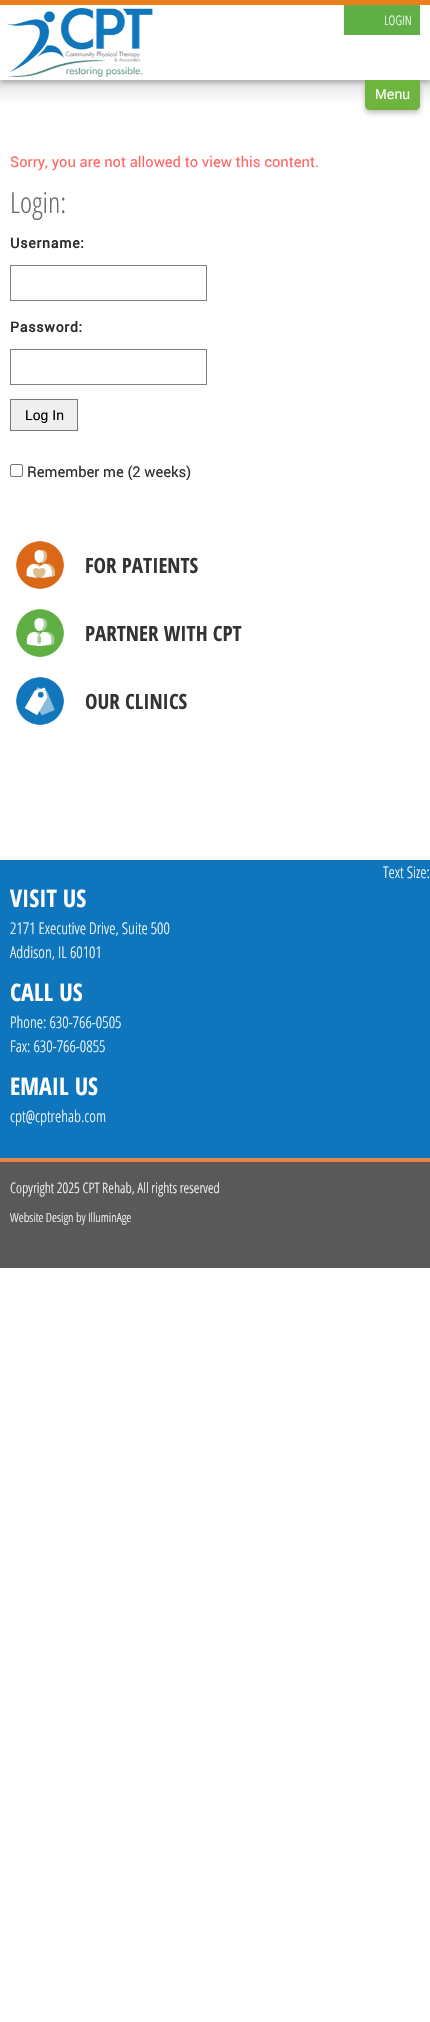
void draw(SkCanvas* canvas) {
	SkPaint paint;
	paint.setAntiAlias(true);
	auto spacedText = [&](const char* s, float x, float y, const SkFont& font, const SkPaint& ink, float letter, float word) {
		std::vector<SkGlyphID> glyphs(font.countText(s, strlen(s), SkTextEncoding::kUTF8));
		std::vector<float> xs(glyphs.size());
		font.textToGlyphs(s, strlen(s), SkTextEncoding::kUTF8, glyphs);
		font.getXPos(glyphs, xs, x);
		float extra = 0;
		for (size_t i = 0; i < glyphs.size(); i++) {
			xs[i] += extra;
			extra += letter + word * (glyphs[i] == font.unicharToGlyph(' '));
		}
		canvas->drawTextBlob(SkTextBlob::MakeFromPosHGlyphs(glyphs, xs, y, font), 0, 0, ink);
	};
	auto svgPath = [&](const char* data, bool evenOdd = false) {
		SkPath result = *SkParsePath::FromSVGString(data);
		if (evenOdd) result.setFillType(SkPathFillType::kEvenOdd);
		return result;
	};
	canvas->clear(0xffffffff);
	canvas->drawImageRect(SkImages::DeferredFromEncodedData(SkData::MakeFromFileName("img2.png")), SkRect::MakeXYWH(0, 80, 430, 22), SkSamplingOptions());
	paint.setColor(0x40000000);
	paint.setMaskFilter(SkMaskFilter::MakeBlur(kNormal_SkBlurStyle, 2.5));
	canvas->drawRect(SkRect::MakeXYWH(0, -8, 430, 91), paint);
	paint.setMaskFilter(nullptr);
	paint.setMaskFilter(SkMaskFilter::MakeBlur(kNormal_SkBlurStyle, 2.5));
	canvas->drawRoundRect(SkRect::MakeXYWH(365, 83, 55, 30), 5, 5, paint);
	paint.setMaskFilter(nullptr);
	paint.setColor(0xffffffff);
	canvas->drawRect(SkRect::MakeXYWH(0, 5, 430, 75), paint);
	paint.setColor(0xffea7f1e);
	canvas->drawRect(SkRect::MakeXYWH(0, 0, 430, 5), paint);
	canvas->drawImageRect(SkImages::DeferredFromEncodedData(SkData::MakeFromFileName("img1.png")), SkRect::MakeXYWH(5, 8, 148, 69), SkSamplingOptions());
	paint.setColor(0xff60af47);
	canvas->drawRect(SkRect::MakeXYWH(344, 5, 76, 30), paint);
	SkFont f1(fontMgr->matchFamilyStyle("Open Sans Condensed", SkFontStyle(300, SkFontStyle::kNormal_Width, SkFontStyle::kUpright_Slant)), 13);
	f1.setSubpixel(true);
	paint.setColor(0xffffffff);
	canvas->drawString("LOGIN", 384, 25, f1, paint);
	paint.setColor(0xff6eb43f);
	canvas->drawPath(svgPath("M365 80H420V105C420 108 418 110 415 110H370C367 110 365 108 365 105Z"), paint);
	SkFont f2(fontMgr->matchFamilyStyle("Liberation Sans", SkFontStyle::Normal()), 14);
	f2.setSubpixel(true);
	paint.setColor(0xffffffff);
	canvas->drawString("Menu", 375, 99, f2, paint);
	SkFont f3(fontMgr->matchFamilyStyle("Roboto", SkFontStyle::Normal()), 14.75);
	f3.setSubpixel(true);
	paint.setColor(0xffff6666);
	canvas->drawString("Sorry, you are not allowed to view this content.", 10, 167, f3, paint);
	SkFont f4(fontMgr->matchFamilyStyle("Open Sans Condensed", SkFontStyle(300, SkFontStyle::kNormal_Width, SkFontStyle::kUpright_Slant)), 29);
	f4.setSubpixel(true);
	paint.setColor(0xff696969);
	canvas->drawString("Login:", 10, 213, f4, paint);
	SkFont f5(fontMgr->matchFamilyStyle("Roboto", SkFontStyle::Bold()), 14);
	f5.setSubpixel(true);
	paint.setColor(0xff2c2c2c);
	spacedText("Username:", 10, 248, f5, paint, 0.75, 0);
	paint.setStroke(true);
	paint.setStrokeWidth(1);
	paint.setColor(0xff808080);
	canvas->drawRect(SkRect::MakeXYWH(10.5, 265.5, 196, 35), paint);
	paint.setStroke(false);
	paint.setColor(0xff2c2c2c);
	spacedText("Password:", 10, 332, f5, paint, 0.75, 0);
	paint.setStroke(true);
	paint.setColor(0xff808080);
	canvas->drawRect(SkRect::MakeXYWH(10.5, 349.5, 196, 35), paint);
	paint.setStroke(false);
	paint.setColor(0xffefefef);
	canvas->drawRect(SkRect::MakeXYWH(10.5, 399.5, 67, 31), paint);
	paint.setStroke(true);
	paint.setColor(0xff787878);
	canvas->drawRect(SkRect::MakeXYWH(10.5, 399.5, 67, 31), paint);
	paint.setStroke(false);
	paint.setColor(0xff000000);
	canvas->drawString("Log In", 25, 420, f2, paint);
	paint.setStroke(true);
	paint.setColor(0xff767676);
	canvas->drawRoundRect(SkRect::MakeXYWH(10.5, 464.5, 12, 12), 1.5, 1.5, paint);
	paint.setStroke(false);
	paint.setColor(0xff2c2c2c);
	canvas->drawString("Remember me (2 weeks)", 27, 477, f3, paint);
	canvas->drawImageRect(SkImages::DeferredFromEncodedData(SkData::MakeFromFileName("img3.png")), SkRect::MakeXYWH(16, 541, 48, 48), SkSamplingOptions());
	SkFont f6(fontMgr->matchFamilyStyle("Open Sans Condensed", SkFontStyle::Bold()), 21);
	f6.setSubpixel(true);
	paint.setColor(0xff333333);
	canvas->drawString("FOR PATIENTS", 85, 573, f6, paint);
	canvas->drawImageRect(SkImages::DeferredFromEncodedData(SkData::MakeFromFileName("img4.png")), SkRect::MakeXYWH(16, 609, 48, 48), SkSamplingOptions());
	canvas->drawString("PARTNER WITH CPT", 85, 641, f6, paint);
	canvas->drawImageRect(SkImages::DeferredFromEncodedData(SkData::MakeFromFileName("img5.png")), SkRect::MakeXYWH(16, 677, 48, 48), SkSamplingOptions());
	canvas->drawString("OUR CLINICS", 85, 709, f6, paint);
	paint.setColor(0xff595959);
	canvas->drawRect(SkRect::MakeXYWH(0, 1162, 430, 106), paint);
	paint.setColor(0xffe48645);
	canvas->drawRect(SkRect::MakeXYWH(0, 1158, 430, 4), paint);
	paint.setColor(0xff0f75bc);
	canvas->drawRect(SkRect::MakeXYWH(0, 860, 430, 298), paint);
	SkFont f7(fontMgr->matchFamilyStyle("Open Sans Condensed", SkFontStyle(300, SkFontStyle::kNormal_Width, SkFontStyle::kUpright_Slant)), 16);
	f7.setSubpixel(true);
	paint.setColor(0xffffffff);
	canvas->drawString("Text Size:", 383, 878, f7, paint);
	SkFont f8(fontMgr->matchFamilyStyle("Open Sans Condensed", SkFontStyle(300, SkFontStyle::kNormal_Width, SkFontStyle::kUpright_Slant)), 14.4);
	f8.setSubpixel(true);
	canvas->drawString("Copyright 2025 CPT Rehab, All rights reserved", 10, 1193, f8, paint);
	SkFont f9(fontMgr->matchFamilyStyle("Open Sans Condensed", SkFontStyle(300, SkFontStyle::kNormal_Width, SkFontStyle::kUpright_Slant)), 12.75);
	f9.setSubpixel(true);
	canvas->drawString("Website Design by IlluminAge", 10, 1222, f9, paint);
	SkFont f10(fontMgr->matchFamilyStyle("Open Sans Condensed", SkFontStyle::Bold()), 24);
	f10.setSubpixel(true);
	canvas->drawString("VISIT US", 10, 907, f10, paint);
	canvas->drawString("2171 Executive Drive, Suite 500", 10, 934, f7, paint);
	canvas->drawString("Addison, IL 60101", 10, 958, f7, paint);
	canvas->drawString("CALL US", 10, 1001, f10, paint);
	canvas->drawString("Phone: 630-766-0505", 10, 1028, f7, paint);
	canvas->drawString("Fax: 630-766-0855", 10, 1052, f7, paint);
	canvas->drawString("EMAIL US", 10, 1095, f10, paint);
	canvas->drawString("cpt@cptrehab.com", 10, 1122, f7, paint);
}
